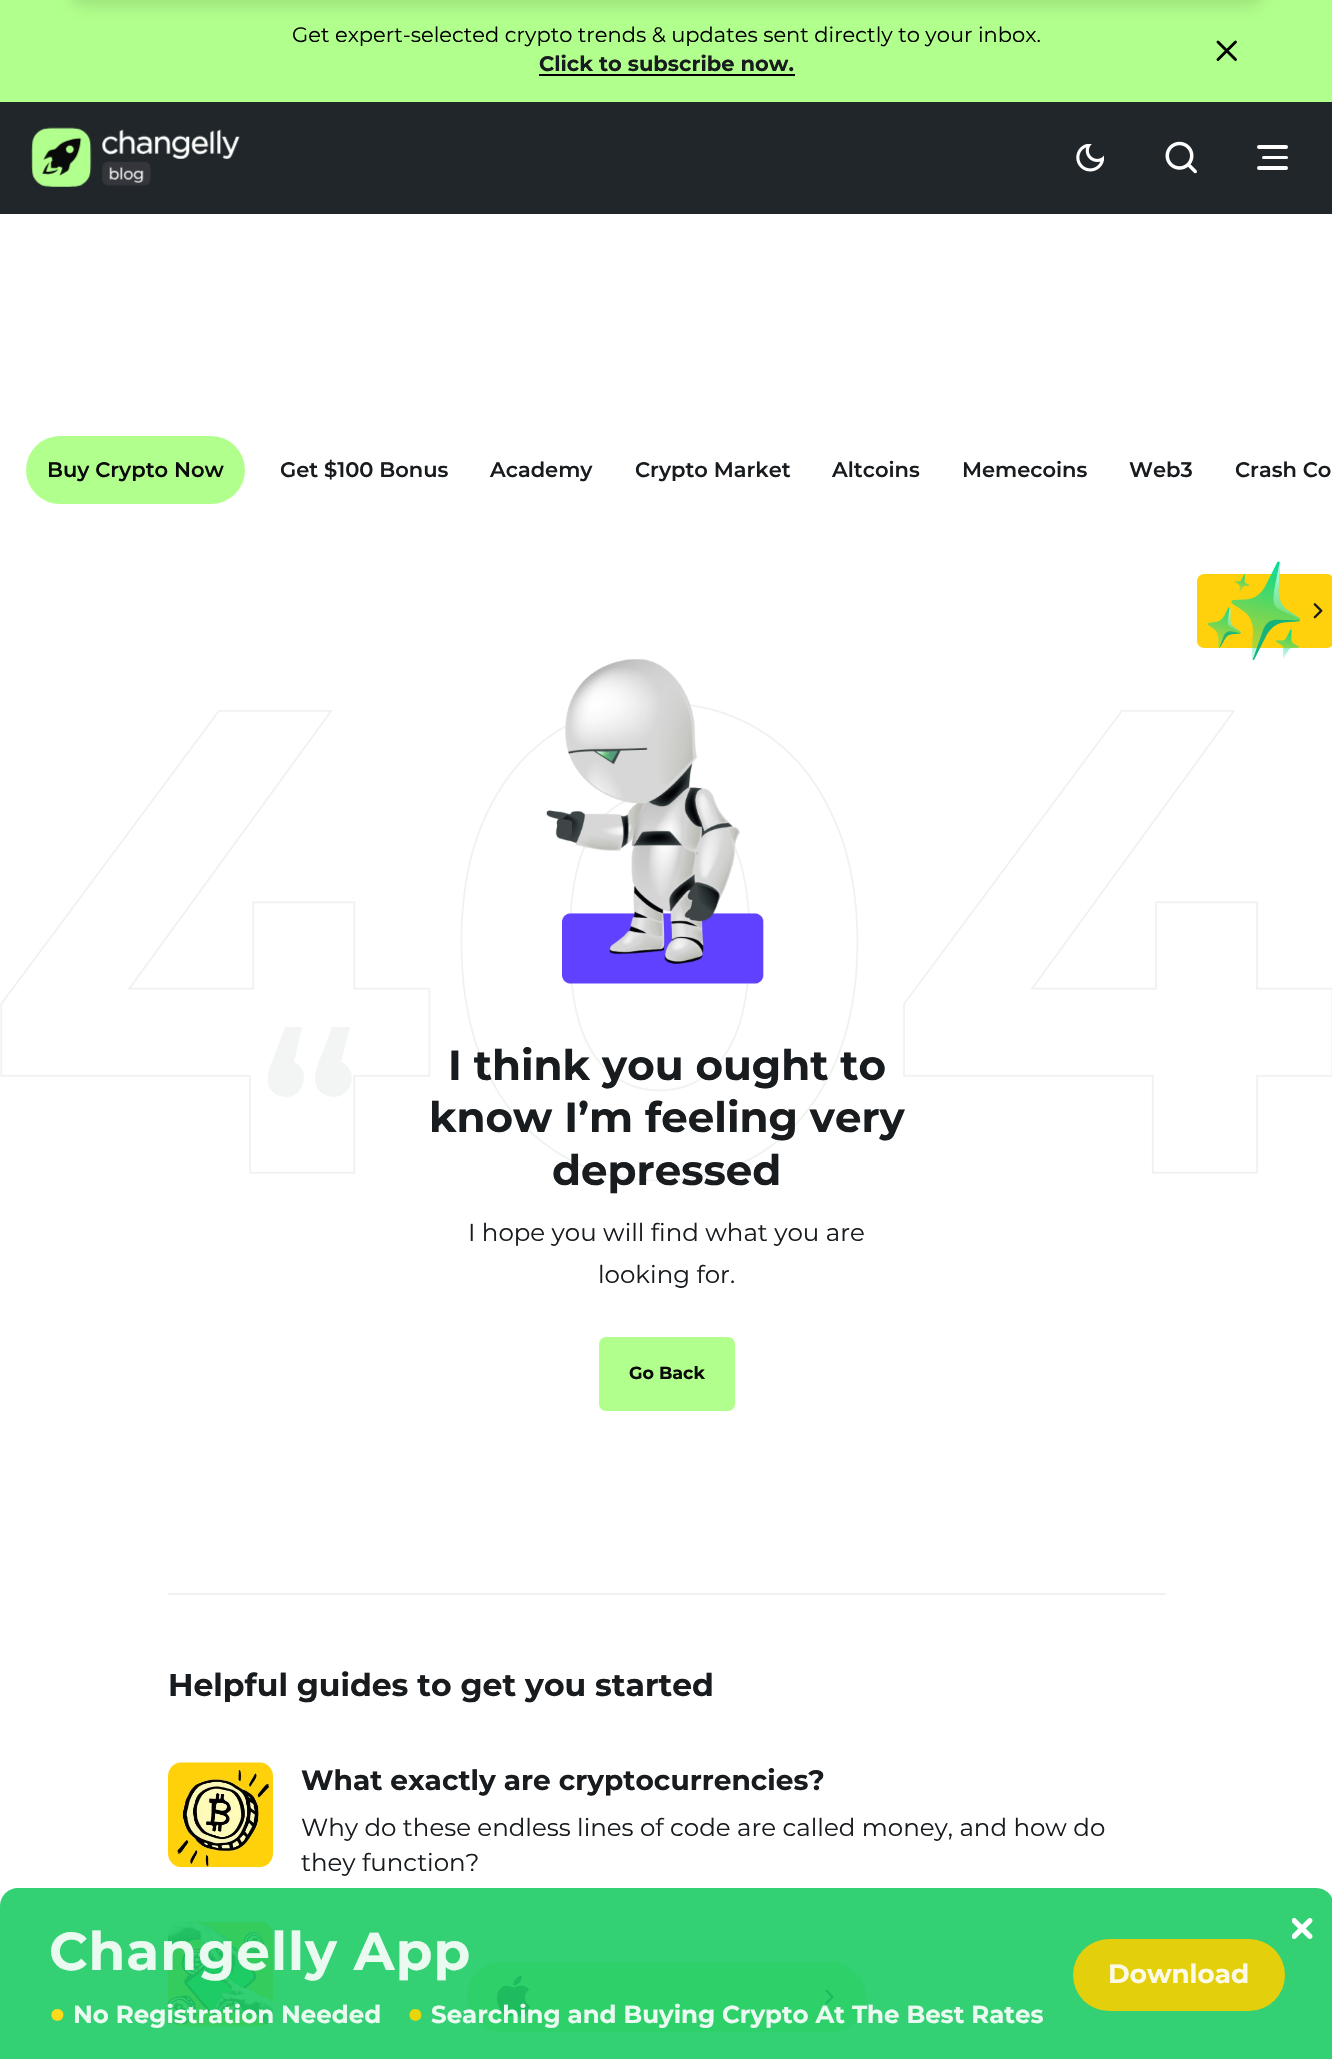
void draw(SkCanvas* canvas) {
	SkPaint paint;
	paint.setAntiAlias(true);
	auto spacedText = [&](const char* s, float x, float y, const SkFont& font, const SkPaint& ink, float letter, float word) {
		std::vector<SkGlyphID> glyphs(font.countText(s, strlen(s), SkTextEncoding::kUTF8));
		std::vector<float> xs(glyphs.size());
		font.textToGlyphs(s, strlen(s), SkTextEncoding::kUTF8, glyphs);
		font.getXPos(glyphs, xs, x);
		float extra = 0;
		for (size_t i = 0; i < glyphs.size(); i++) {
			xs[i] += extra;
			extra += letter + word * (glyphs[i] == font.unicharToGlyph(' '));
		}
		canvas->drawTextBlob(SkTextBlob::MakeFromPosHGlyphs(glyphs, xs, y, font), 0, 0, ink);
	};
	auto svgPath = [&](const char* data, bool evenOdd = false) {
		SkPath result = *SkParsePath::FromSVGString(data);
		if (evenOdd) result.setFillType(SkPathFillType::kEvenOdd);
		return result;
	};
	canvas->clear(0xffffffff);
	paint.setColor(0xffb1ff8c);
	canvas->drawRect(SkRect::MakeXYWH(0, 0, 1332, 102), paint);
	paint.setColor(0x1a000000);
	paint.setMaskFilter(SkMaskFilter::MakeBlur(kNormal_SkBlurStyle, 7));
	canvas->drawRoundRect(SkRect::MakeXYWH(67, -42, 1200, 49), 21, 21, paint);
	paint.setMaskFilter(nullptr);
	SkFont f1(fontMgr->matchFamilyStyle("Montserrat", SkFontStyle(100, SkFontStyle::kNormal_Width, SkFontStyle::kUpright_Slant)), 21);
	f1.setSubpixel(true);
	paint.setColor(0xff000000);
	canvas->drawString("Get expert-selected crypto trends & updates sent directly to your inbox.", 292, 42, f1, paint);
	SkFont f2(fontMgr->matchFamilyStyle("Montserrat", SkFontStyle::Bold()), 21);
	f2.setSubpixel(true);
	paint.setColor(0xff181c1f);
	canvas->drawString("Click to subscribe now.", 539, 71, f2, paint);
	paint.setColor(0xff000000);
	canvas->drawRect(SkRect::MakeXYWH(539, 74, 256, 2), paint);
	paint.setStroke(true);
	paint.setStrokeWidth(2.9);
	paint.setStrokeCap(SkPaint::kRound_Cap);
	paint.setStrokeJoin(SkPaint::kRound_Join);
	canvas->drawPath(svgPath("M1235.5 42L1218 59.5M1235.5 59.5L1218 42"), paint);
	paint.setStroke(false);
	paint.setColor(0xff20262a);
	canvas->drawRect(SkRect::MakeXYWH(0, 102, 1332, 112), paint);
	canvas->drawImageRect(SkImages::DeferredFromEncodedData(SkData::MakeFromFileName("img1.png")), SkRect::MakeXYWH(31, 127, 209, 60), SkSamplingOptions());
	canvas->drawImageRect(SkImages::DeferredFromEncodedData(SkData::MakeFromFileName("img2.png")), SkRect::MakeXYWH(1076, 144, 28, 28), SkSamplingOptions());
	canvas->drawImageRect(SkImages::DeferredFromEncodedData(SkData::MakeFromFileName("img3.png")), SkRect::MakeXYWH(1165, 141, 32, 33), SkSamplingOptions());
	paint.setColor(0xffffffff);
	canvas->drawRoundRect(SkRect::MakeXYWH(1257, 145, 31, 4), 2, 2, paint);
	canvas->drawRoundRect(SkRect::MakeXYWH(1262, 156, 26, 3), 1.5, 1.5, paint);
	canvas->drawRoundRect(SkRect::MakeXYWH(1257, 166, 31, 4), 2, 2, paint);
	paint.setColor(0xffb1ff8c);
	canvas->drawRoundRect(SkRect::MakeXYWH(26, 436, 219, 68), 34, 34, paint);
	SkFont f3(fontMgr->matchFamilyStyle("Montserrat", SkFontStyle(600, SkFontStyle::kNormal_Width, SkFontStyle::kUpright_Slant)), 21);
	f3.setSubpixel(true);
	paint.setColor(0xff0a0a0a);
	canvas->drawString("Buy Crypto Now", 47, 477, f3, paint);
	paint.setColor(0xff181c1f);
	canvas->drawString("Get $100 Bonus", 280, 477, f3, paint);
	canvas->drawString("Academy", 490, 477, f3, paint);
	canvas->drawString("Crypto Market", 635, 477, f3, paint);
	canvas->drawString("Altcoins", 832, 477, f3, paint);
	canvas->drawString("Memecoins", 962, 477, f3, paint);
	canvas->drawString("Web3", 1129, 477, f3, paint);
	canvas->drawString("Crash Co", 1235, 477, f3, paint);
	paint.setColor(0xffffd10d);
	canvas->drawRoundRect(SkRect::MakeXYWH(1197, 574, 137, 74), 7, 7, paint);
	canvas->drawImageRect(SkImages::DeferredFromEncodedData(SkData::MakeFromFileName("img4.png")), SkRect::MakeXYWH(1207, 561, 94, 99), SkSamplingOptions());
	canvas->drawImageRect(SkImages::DeferredFromEncodedData(SkData::MakeFromFileName("img5.png")), SkRect::MakeXYWH(1313, 603, 10, 16), SkSamplingOptions());
	canvas->drawImageRect(SkImages::DeferredFromEncodedData(SkData::MakeFromFileName("img6.png")), SkRect::MakeXYWH(0, 704, 1332, 477), SkSamplingOptions());
	canvas->drawImageRect(SkImages::DeferredFromEncodedData(SkData::MakeFromFileName("img7.png")), SkRect::MakeXYWH(546, 659, 218, 325), SkSamplingOptions());
	paint.setColor(0xfff3f4f4);
	canvas->drawPath(svgPath("M294 1062C310 1068 306 1095 288 1097C284 1097 280 1096 277 1095C261 1086 270 1066 275 1054L285 1027H302ZM341 1062C358 1068 354 1095 335 1097C332 1097 328 1096 325 1095C308 1086 317 1066 322 1054L332 1027H350Z"), paint);
	SkFont f4(fontMgr->matchFamilyStyle("Montserrat", SkFontStyle::Bold()), 42);
	f4.setSubpixel(true);
	paint.setColor(0xff181c1f);
	canvas->drawString("I think you ought to", 448, 1080, f4, paint);
	canvas->drawString("know I’m feeling very", 429, 1132, f4, paint);
	canvas->drawString("depressed", 552, 1185, f4, paint);
	SkFont f5(fontMgr->matchFamilyStyle("Montserrat", SkFontStyle(100, SkFontStyle::kNormal_Width, SkFontStyle::kUpright_Slant)), 24.5);
	f5.setSubpixel(true);
	canvas->drawString("I hope you will find what you are", 468, 1241, f5, paint);
	canvas->drawString("looking for.", 598, 1283, f5, paint);
	paint.setColor(0xffb1ff8c);
	canvas->drawRoundRect(SkRect::MakeXYWH(600, 1338, 134, 72), 6, 6, paint);
	paint.setStroke(true);
	paint.setStrokeWidth(2);
	paint.setStrokeCap(SkPaint::kButt_Cap);
	paint.setStrokeJoin(SkPaint::kMiter_Join);
	canvas->drawRoundRect(SkRect::MakeXYWH(600, 1338, 134, 72), 6, 6, paint);
	SkFont f6(fontMgr->matchFamilyStyle("Montserrat", SkFontStyle::Bold()), 17.5);
	f6.setSubpixel(true);
	paint.setStroke(false);
	paint.setColor(0xff0a0a0a);
	canvas->drawString("Go Back", 629, 1379, f6, paint);
	paint.setColor(0xfff0f1f1);
	canvas->drawRect(SkRect::MakeXYWH(168, 1593, 998, 2), paint);
	SkFont f7(fontMgr->matchFamilyStyle("Montserrat", SkFontStyle::Bold()), 31.5);
	f7.setSubpixel(true);
	paint.setColor(0xff181c1f);
	canvas->drawString("Helpful guides to get you started", 168, 1696, f7, paint);
	canvas->drawImageRect(SkImages::DeferredFromEncodedData(SkData::MakeFromFileName("img8.png")), SkRect::MakeXYWH(168, 1762, 105, 106), SkSamplingOptions());
	SkFont f8(fontMgr->matchFamilyStyle("Montserrat", SkFontStyle::Bold()), 28);
	f8.setSubpixel(true);
	canvas->drawString("What exactly are cryptocurrencies?", 301, 1790, f8, paint);
	canvas->drawString("Why do these endless lines of code are called money, and how do", 301, 1836, f5, paint);
	canvas->drawString("they function?", 301, 1871, f5, paint);
	canvas->drawImageRect(SkImages::DeferredFromEncodedData(SkData::MakeFromFileName("img9.png")), SkRect::MakeXYWH(168, 1921, 105, 106), SkSamplingOptions());
	paint.setColor(0xffb1ff8c);
	canvas->drawRoundRect(SkRect::MakeXYWH(467, 1962, 399, 70), 35, 35, paint);
	paint.setStroke(true);
	paint.setStrokeCap(SkPaint::kRound_Cap);
	paint.setStrokeJoin(SkPaint::kRound_Join);
	paint.setColor(0xff000000);
	canvas->drawPath(svgPath("M826.5 2003L832.5 1997L826.5 1990.5"), paint);
	canvas->drawImageRect(SkImages::DeferredFromEncodedData(SkData::MakeFromFileName("img11.png")), SkRect::MakeXYWH(497, 1976, 33, 41), SkSamplingOptions());
	paint.setStroke(false);
	paint.setColor(0xe61ecb65);
	canvas->drawPath(svgPath("M18 1888H1316C1326 1888 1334 1896 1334 1906V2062H0V1906C0 1896 8 1888 18 1888Z"), paint);
	SkFont f9(fontMgr->matchFamilyStyle("Montserrat", SkFontStyle::Bold()), 53.25);
	f9.setSubpixel(true);
	paint.setColor(0xffeafaf1);
	spacedText("Changelly App", 49, 1970, f9, paint, 1, 0);
	SkFont f10(fontMgr->matchFamilyStyle("Montserrat", SkFontStyle::Bold()), 47);
	f10.setSubpixel(true);
	paint.setColor(0xffffda1a);
	canvas->drawString("•", 49, 2028, f10, paint);
	SkFont f11(fontMgr->matchFamilyStyle("Montserrat", SkFontStyle::Bold()), 24.5);
	f11.setSubpixel(true);
	paint.setColor(0xffeafaf1);
	canvas->drawString("No Registration Needed", 73, 2023, f11, paint);
	paint.setColor(0xffead50b);
	canvas->drawString("•", 407, 2028, f10, paint);
	paint.setColor(0xffeafaf1);
	canvas->drawString("Searching and Buying Crypto At The Best Rates", 431, 2023, f11, paint);
	paint.setColor(0xe6f5ce00);
	canvas->drawRoundRect(SkRect::MakeXYWH(1073, 1939, 212, 72), 36, 36, paint);
	SkFont f12(fontMgr->matchFamilyStyle("Montserrat", SkFontStyle::Bold()), 26.25);
	f12.setSubpixel(true);
	paint.setColor(0xfffcfae7);
	canvas->drawString("Download", 1108, 1983, f12, paint);
	canvas->drawImageRect(SkImages::DeferredFromEncodedData(SkData::MakeFromFileName("img10.png")), SkRect::MakeXYWH(1292, 1918, 21, 21), SkSamplingOptions());
}
